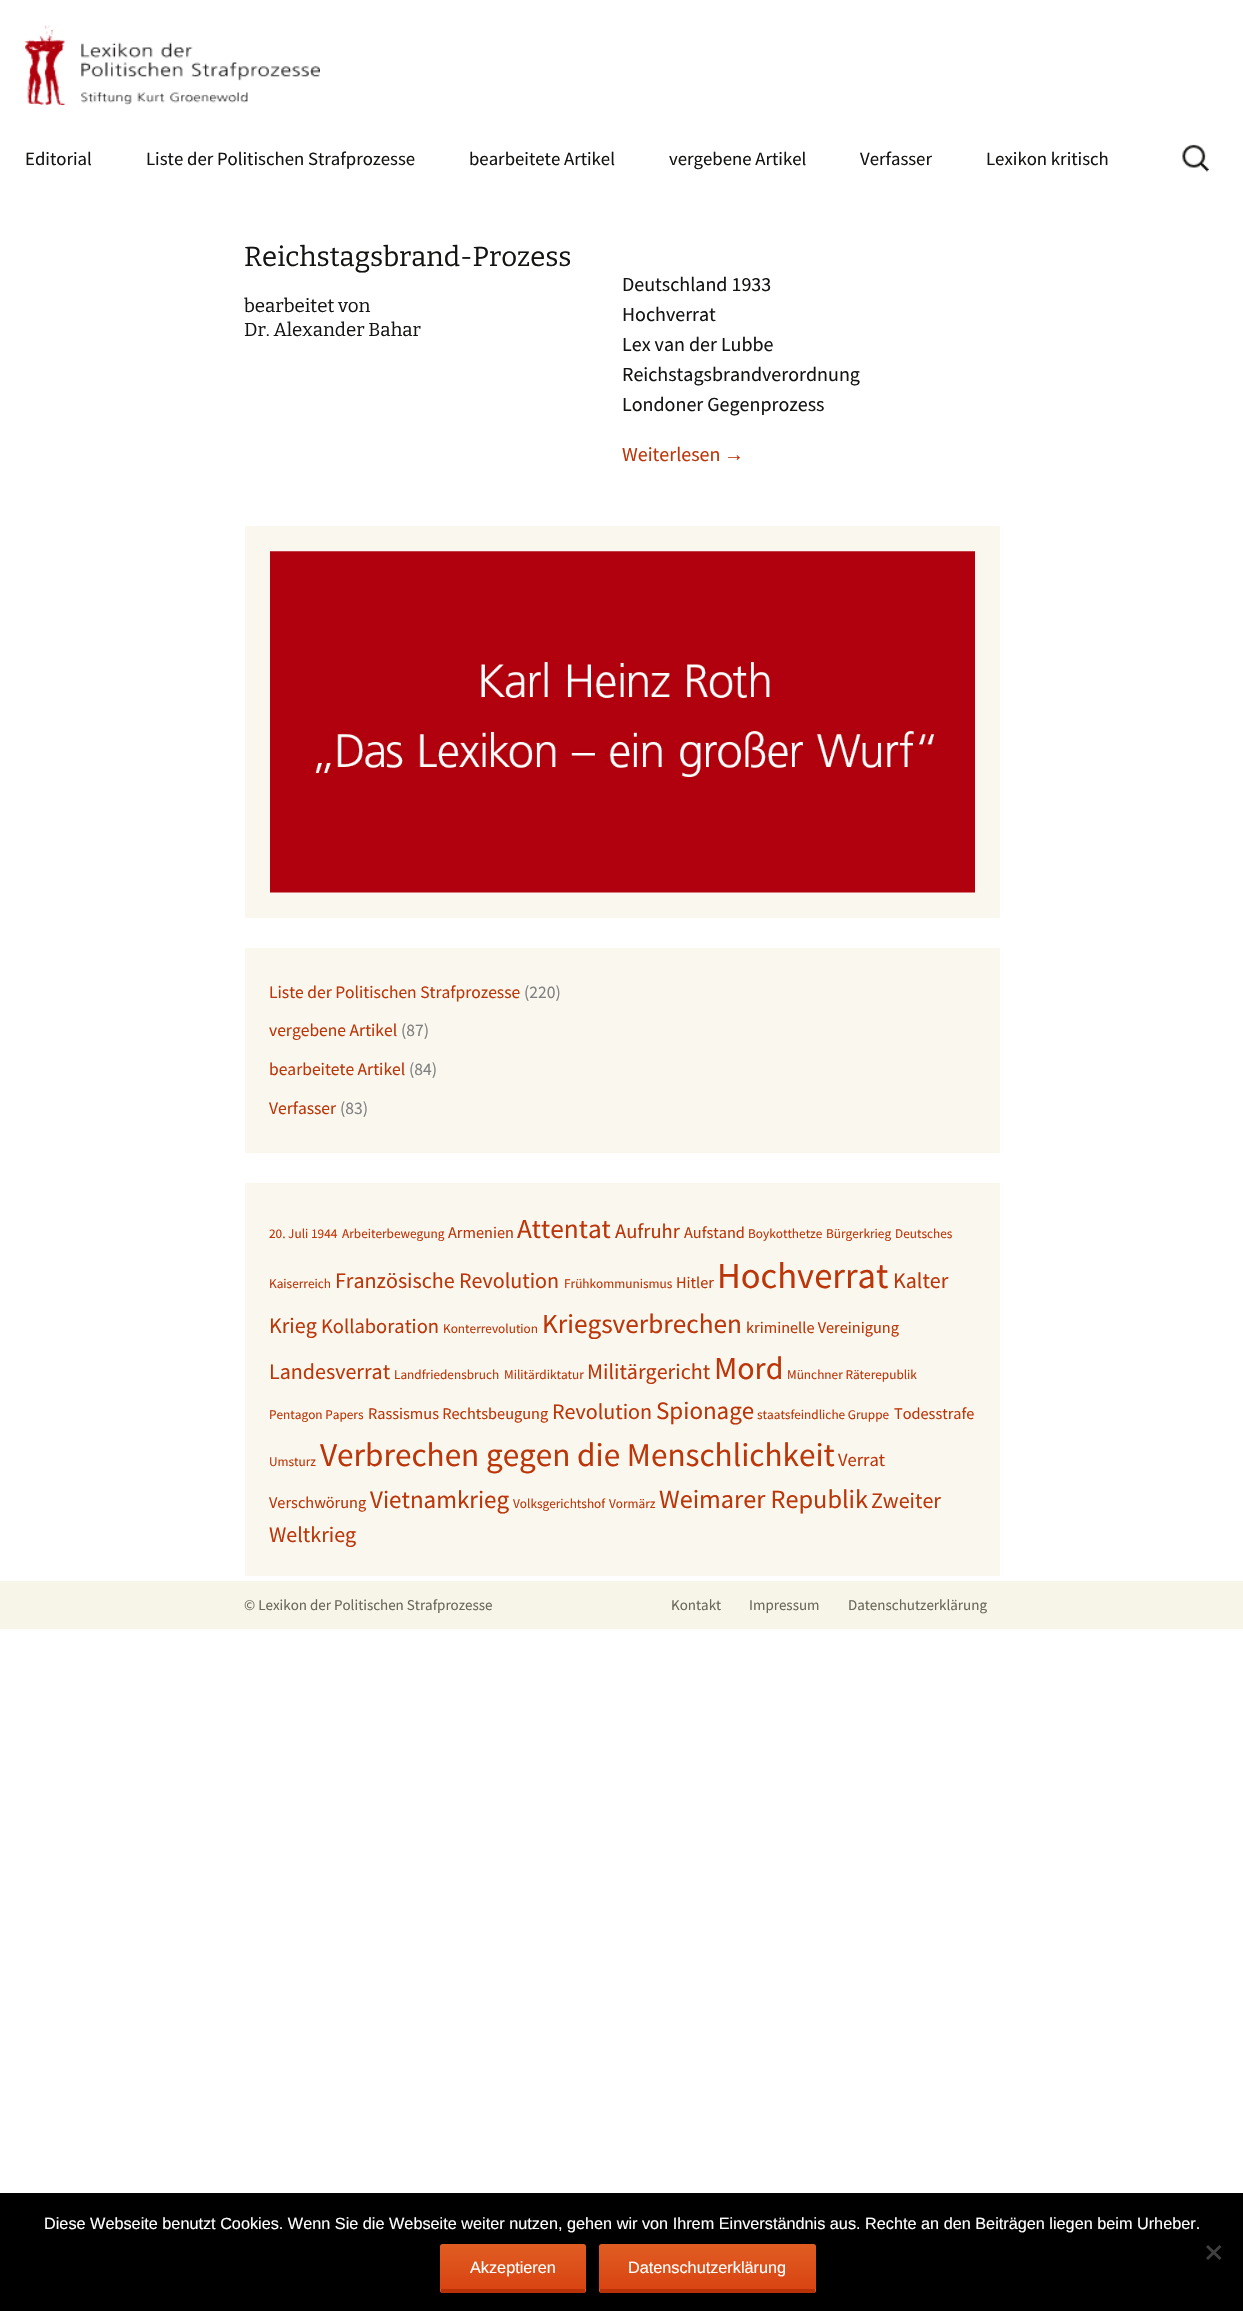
void draw(SkCanvas* canvas) {
	SkPaint paint;
	paint.setAntiAlias(true);
	auto svgPath = [&](const char* data, bool evenOdd = false) {
		SkPath result = *SkParsePath::FromSVGString(data);
		if (evenOdd) result.setFillType(SkPathFillType::kEvenOdd);
		return result;
	};
	canvas->clear(0xffffffff);
	canvas->drawImageRect(SkImages::DeferredFromEncodedData(SkData::MakeFromFileName("img1.png")), SkRect::MakeXYWH(25, 25, 295, 80), SkSamplingOptions());
	SkFont f1(fontMgr->matchFamilyStyle("Source Sans Pro", SkFontStyle::Normal()), 18.75);
	f1.setSubpixel(true);
	paint.setColor(0xff141412);
	canvas->drawString("Editorial", 25, 165, f1, paint);
	canvas->drawString("Liste der Politischen Strafprozesse", 146, 165, f1, paint);
	canvas->drawString("bearbeitete Artikel", 469, 165, f1, paint);
	canvas->drawString("vergebene Artikel", 669, 165, f1, paint);
	canvas->drawString("Verfasser", 860, 165, f1, paint);
	canvas->drawString("Lexikon kritisch", 986, 165, f1, paint);
	canvas->drawImageRect(SkImages::DeferredFromEncodedData(SkData::MakeFromFileName("img2.png")), SkRect::MakeXYWH(1182, 144, 27, 28), SkSamplingOptions());
	SkFont f2(fontMgr->matchFamilyStyle("Bitter", SkFontStyle(100, SkFontStyle::kNormal_Width, SkFontStyle::kUpright_Slant)), 27.5);
	f2.setSubpixel(true);
	canvas->drawString("Reichstagsbrand-Prozess", 244, 266, f2, paint);
	SkFont f3(fontMgr->matchFamilyStyle("Bitter", SkFontStyle(100, SkFontStyle::kNormal_Width, SkFontStyle::kUpright_Slant)), 18.75);
	f3.setSubpixel(true);
	canvas->drawString("bearbeitet von", 244, 312, f3, paint);
	canvas->drawString("Dr. Alexander Bahar", 244, 336, f3, paint);
	SkFont f4(fontMgr->matchFamilyStyle("Source Sans Pro", SkFontStyle::Normal()), 20);
	f4.setSubpixel(true);
	canvas->drawString("Deutschland 1933", 622, 291, f4, paint);
	canvas->drawString("Hochverrat", 622, 321, f4, paint);
	canvas->drawString("Lex van der Lubbe", 622, 351, f4, paint);
	canvas->drawString("Reichstagsbrandverordnung", 622, 381, f4, paint);
	canvas->drawString("Londoner Gegenprozess", 622, 411, f4, paint);
	paint.setColor(0xffbc360a);
	canvas->drawString("Weiterlesen", 622, 461, f4, paint);
	SkFont f5(fontMgr->matchFamilyStyle("Liberation Sans", SkFontStyle::Normal()), 20);
	f5.setSubpixel(true);
	canvas->drawString("→", 724, 461, f5, paint);
	paint.setColor(0xfffaf8ee);
	canvas->drawRect(SkRect::MakeXYWH(245, 526, 755, 392), paint);
	canvas->drawImageRect(SkImages::DeferredFromEncodedData(SkData::MakeFromFileName("img3.png")), SkRect::MakeXYWH(270, 551, 705, 342), SkSamplingOptions());
	canvas->drawRect(SkRect::MakeXYWH(245, 948, 755, 205), paint);
	SkFont f6(fontMgr->matchFamilyStyle("Source Sans Pro", SkFontStyle::Normal()), 17.5);
	f6.setSubpixel(true);
	paint.setColor(0xffbc360a);
	canvas->drawString("Liste der Politischen Strafprozesse", 269, 998, f6, paint);
	paint.setColor(0xff808080);
	canvas->drawString("(220)", 524, 998, f6, paint);
	paint.setColor(0xffbc360a);
	canvas->drawString("vergebene Artikel", 269, 1036, f6, paint);
	paint.setColor(0xff808080);
	canvas->drawString("(87)", 401, 1036, f6, paint);
	paint.setColor(0xffbc360a);
	canvas->drawString("bearbeitete Artikel", 269, 1075, f6, paint);
	paint.setColor(0xff808080);
	canvas->drawString("(84)", 409, 1075, f6, paint);
	paint.setColor(0xffbc360a);
	canvas->drawString("Verfasser", 269, 1114, f6, paint);
	paint.setColor(0xff808080);
	canvas->drawString("(83)", 340, 1114, f6, paint);
	paint.setColor(0xfffaf8ee);
	canvas->drawRect(SkRect::MakeXYWH(245, 1183, 755, 393), paint);
	SkFont f7(fontMgr->matchFamilyStyle("Source Sans Pro", SkFontStyle::Normal()), 13.25);
	f7.setSubpixel(true);
	paint.setColor(0xffbc360a);
	canvas->drawString("20. Juli 1944", 269, 1238, f7, paint);
	canvas->drawString("Arbeiterbewegung", 342, 1238, f7, paint);
	SkFont f8(fontMgr->matchFamilyStyle("Source Sans Pro", SkFontStyle::Normal()), 16.25);
	f8.setSubpixel(true);
	canvas->drawString("Armenien", 448, 1238, f8, paint);
	SkFont f9(fontMgr->matchFamilyStyle("Source Sans Pro", SkFontStyle::Normal()), 27.25);
	f9.setSubpixel(true);
	canvas->drawString("Attentat", 517, 1238, f9, paint);
	SkFont f10(fontMgr->matchFamilyStyle("Source Sans Pro", SkFontStyle::Normal()), 20.5);
	f10.setSubpixel(true);
	canvas->drawString("Aufruhr", 615, 1238, f10, paint);
	canvas->drawString("Aufstand", 684, 1238, f8, paint);
	canvas->drawString("Boykotthetze", 748, 1238, f7, paint);
	canvas->drawString("Bürgerkrieg", 826, 1238, f7, paint);
	canvas->drawString("Deutsches", 895, 1238, f7, paint);
	canvas->drawString("Kaiserreich", 269, 1288, f7, paint);
	SkFont f11(fontMgr->matchFamilyStyle("Source Sans Pro", SkFontStyle::Normal()), 22);
	f11.setSubpixel(true);
	canvas->drawString("Französische Revolution", 335, 1288, f11, paint);
	canvas->drawString("Frühkommunismus", 564, 1288, f7, paint);
	canvas->drawString("Hitler", 676, 1288, f8, paint);
	SkFont f12(fontMgr->matchFamilyStyle("Source Sans Pro", SkFontStyle::Normal()), 36.5);
	f12.setSubpixel(true);
	canvas->drawString("Hochverrat", 717, 1288, f12, paint);
	canvas->drawString("Kalter", 893, 1288, f11, paint);
	canvas->drawString("Krieg", 269, 1333, f11, paint);
	canvas->drawString("Kollaboration", 321, 1333, f10, paint);
	canvas->drawString("Konterrevolution", 443, 1333, f7, paint);
	canvas->drawString("Kriegsverbrechen", 542, 1333, f9, paint);
	canvas->drawString("kriminelle Vereinigung", 746, 1333, f8, paint);
	canvas->drawString("Landesverrat", 269, 1379, f11, paint);
	canvas->drawString("Landfriedensbruch", 394, 1379, f7, paint);
	canvas->drawString("Militärdiktatur", 504, 1379, f7, paint);
	canvas->drawString("Militärgericht", 587, 1379, f11, paint);
	SkFont f13(fontMgr->matchFamilyStyle("Source Sans Pro", SkFontStyle::Normal()), 32);
	f13.setSubpixel(true);
	canvas->drawString("Mord", 714, 1379, f13, paint);
	canvas->drawString("Münchner Räterepublik", 787, 1379, f7, paint);
	canvas->drawString("Pentagon Papers", 269, 1419, f7, paint);
	canvas->drawString("Rassismus Rechtsbeugung", 368, 1419, f8, paint);
	canvas->drawString("Revolution", 552, 1419, f11, paint);
	SkFont f14(fontMgr->matchFamilyStyle("Source Sans Pro", SkFontStyle::Normal()), 25);
	f14.setSubpixel(true);
	canvas->drawString("Spionage", 656, 1419, f14, paint);
	canvas->drawString("staatsfeindliche Gruppe", 757, 1419, f7, paint);
	canvas->drawString("Todesstrafe", 894, 1419, f8, paint);
	canvas->drawString("Umsturz", 269, 1466, f7, paint);
	SkFont f15(fontMgr->matchFamilyStyle("Source Sans Pro", SkFontStyle::Normal()), 33.2);
	f15.setSubpixel(true);
	canvas->drawString("Verbrechen gegen die Menschlichkeit", 320, 1466, f15, paint);
	SkFont f16(fontMgr->matchFamilyStyle("Source Sans Pro", SkFontStyle::Normal()), 18.5);
	f16.setSubpixel(true);
	canvas->drawString("Verrat", 838, 1466, f16, paint);
	canvas->drawString("Verschwörung", 269, 1508, f8, paint);
	canvas->drawString("Vietnamkrieg", 370, 1508, f14, paint);
	canvas->drawString("Volksgerichtshof", 513, 1508, f7, paint);
	canvas->drawString("Vormärz", 609, 1508, f7, paint);
	SkFont f17(fontMgr->matchFamilyStyle("Source Sans Pro", SkFontStyle::Normal()), 26.25);
	f17.setSubpixel(true);
	canvas->drawString("Weimarer Republik", 659, 1508, f17, paint);
	canvas->drawString("Zweiter", 871, 1508, f11, paint);
	canvas->drawString("Weltkrieg", 269, 1542, f11, paint);
	paint.setColor(0xfff7f5e7);
	canvas->drawRect(SkRect::MakeXYWH(0, 1581, 1243, 48), paint);
	SkFont f18(fontMgr->matchFamilyStyle("Source Sans Pro", SkFontStyle::Normal()), 15);
	f18.setSubpixel(true);
	paint.setColor(0xff686758);
	canvas->drawString("© Lexikon der Politischen Strafprozesse", 244, 1610, f18, paint);
	canvas->drawString("Kontakt", 671, 1610, f18, paint);
	canvas->drawString("Impressum", 749, 1610, f18, paint);
	canvas->drawString("Datenschutzerklärung", 848, 1610, f18, paint);
	paint.setColor(0xff000000);
	canvas->drawRect(SkRect::MakeXYWH(0, 2193, 1243, 118), paint);
	SkFont f19(fontMgr->matchFamilyStyle("Liberation Sans", SkFontStyle::Normal()), 16.25);
	f19.setSubpixel(true);
	paint.setColor(0xffffffff);
	canvas->drawString("Diese Webseite benutzt Cookies. Wenn Sie die Webseite weiter nutzen, gehen wir von Ihrem Einverständnis aus. Rechte an den Beiträgen liegen beim Urheber.", 44, 2229, f19, paint);
	paint.setColor(0xff404040);
	canvas->drawPath(svgPath("M1219.5 2245L1221.5 2247L1208 2260L1206 2258Z"), paint);
	canvas->drawPath(svgPath("M1206 2247L1208 2245L1221.5 2258L1219.5 2260Z"), paint);
	{
		const SkColor colors[] = {0xffe05d22, 0xffd94412};
		const float stops[] = {0, 1};
		const SkPoint ends[] = {{513, 2244}, {513, 2289}};
		paint.setShader(SkGradientShader::MakeLinear(ends, colors, stops, 2, SkTileMode::kClamp));
		paint.setAlpha(255);
	}
	canvas->drawPath(svgPath("M442.5 2244H583.5C585 2244 586 2245 586 2246.5V2289H440V2246.5C440 2245 441 2244 442.5 2244Z"), paint);
	{
		const SkColor colors[] = {0xffe05d22, 0xffd94412};
		const float stops[] = {0, 1};
		const SkPoint ends[] = {{513, 2289}, {513, 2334}};
		paint.setShader(SkGradientShader::MakeLinear(ends, colors, stops, 2, SkTileMode::kClamp));
		paint.setAlpha(255);
	}
	canvas->drawPath(svgPath("M440 2289H586V2290.5C586 2292 585 2293 583.5 2293H442.5C441 2293 440 2292 440 2290.5Z"), paint);
	paint.setShader(nullptr);
	paint.setColor(0xffb93207);
	canvas->drawRect(SkRect::MakeXYWH(441, 2289, 144, 4), paint);
	paint.setColor(0xffffffff);
	canvas->drawString("Akzeptieren", 470, 2273, f19, paint);
	{
		const SkColor colors[] = {0xffe05d22, 0xffd94412};
		const float stops[] = {0, 1};
		const SkPoint ends[] = {{708, 2244}, {708, 2289}};
		paint.setShader(SkGradientShader::MakeLinear(ends, colors, stops, 2, SkTileMode::kClamp));
		paint.setAlpha(255);
	}
	canvas->drawPath(svgPath("M601.5 2244H813.5C815 2244 816 2245 816 2246.5V2289H599V2246.5C599 2245 600 2244 601.5 2244Z"), paint);
	{
		const SkColor colors[] = {0xffe05d22, 0xffd94412};
		const float stops[] = {0, 1};
		const SkPoint ends[] = {{708, 2289}, {708, 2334}};
		paint.setShader(SkGradientShader::MakeLinear(ends, colors, stops, 2, SkTileMode::kClamp));
		paint.setAlpha(255);
	}
	canvas->drawPath(svgPath("M599 2289H816V2290.5C816 2292 815 2293 813.5 2293H601.5C600 2293 599 2292 599 2290.5Z"), paint);
	paint.setShader(nullptr);
	paint.setColor(0xffb93207);
	canvas->drawRect(SkRect::MakeXYWH(600, 2289, 215, 4), paint);
	paint.setColor(0xffffffff);
	canvas->drawString("Datenschutzerklärung", 628, 2273, f19, paint);
}
